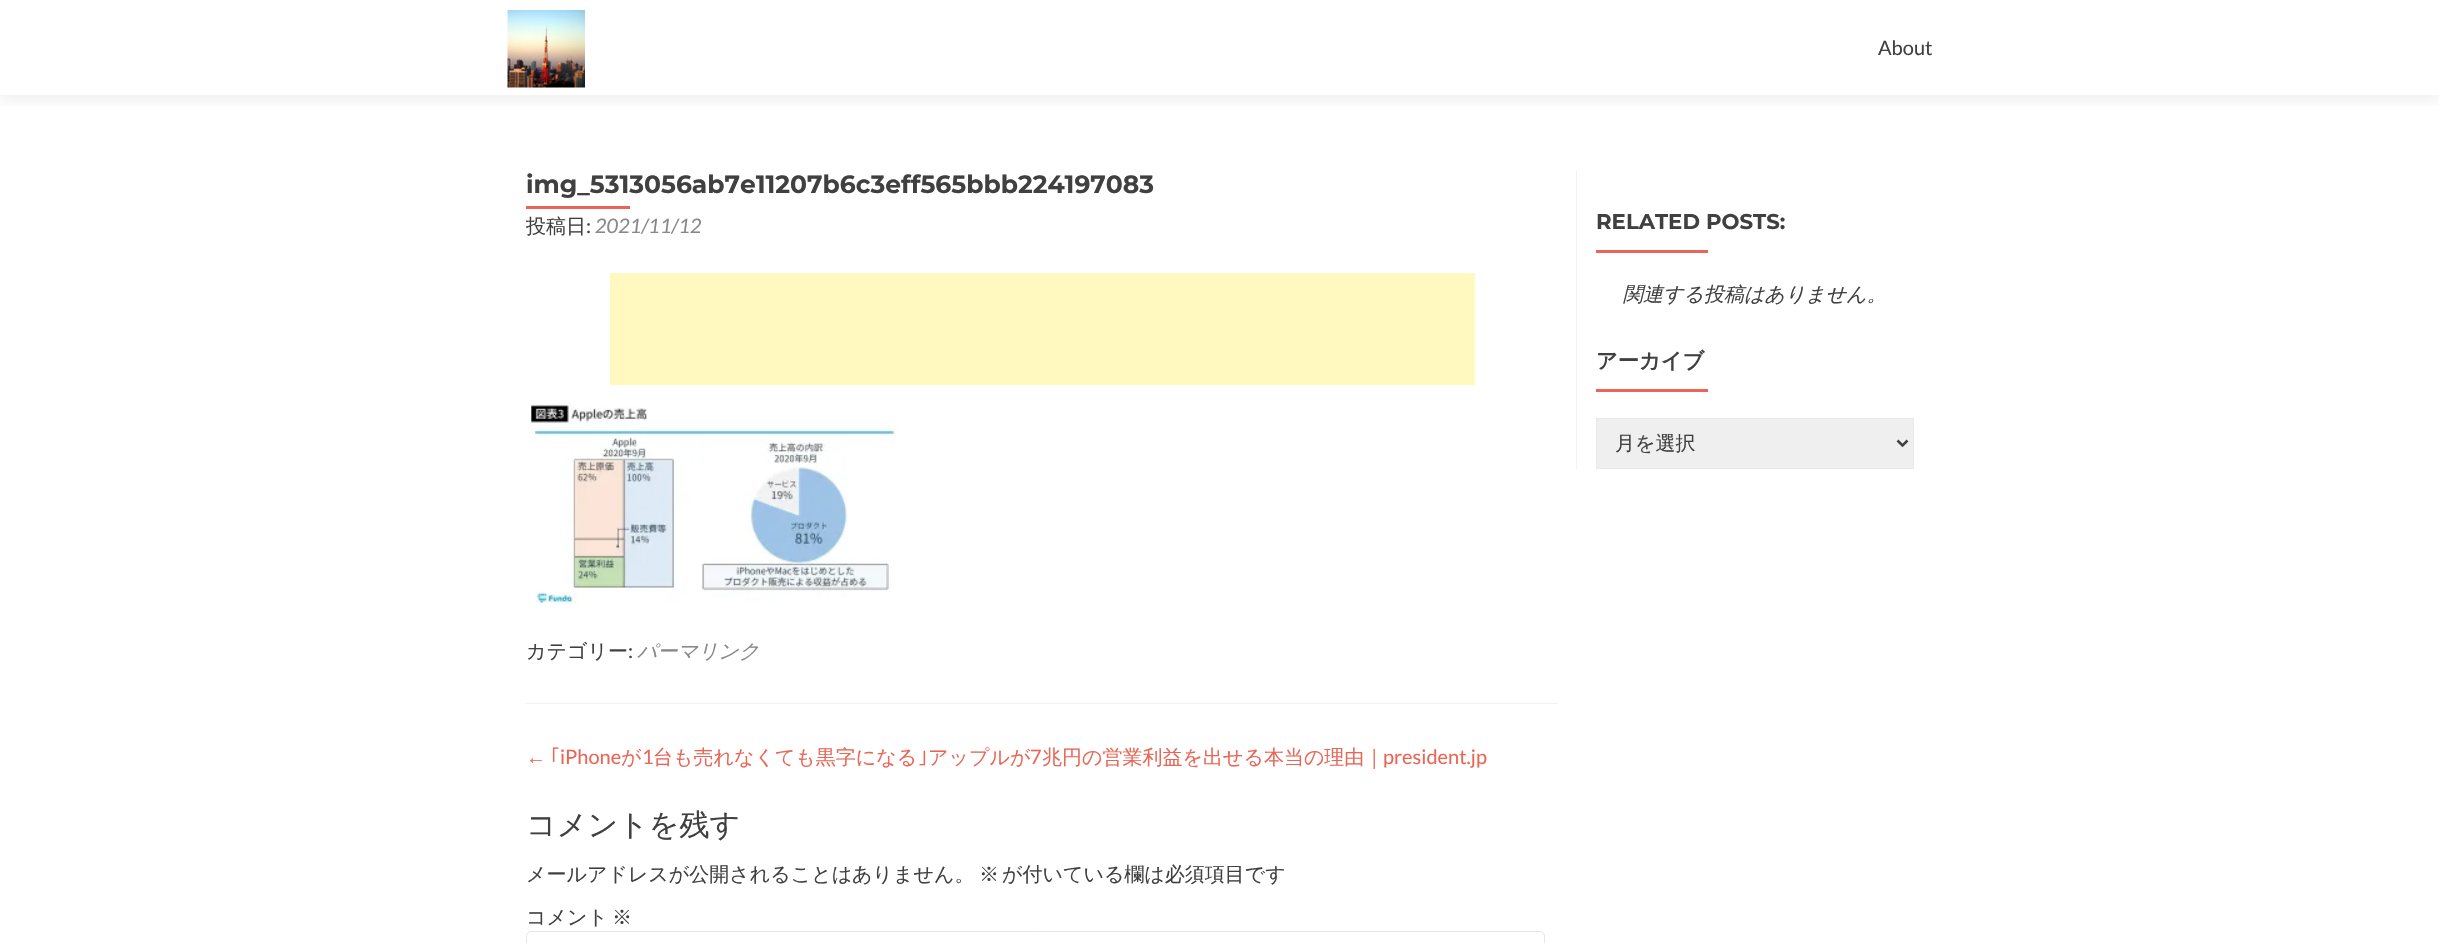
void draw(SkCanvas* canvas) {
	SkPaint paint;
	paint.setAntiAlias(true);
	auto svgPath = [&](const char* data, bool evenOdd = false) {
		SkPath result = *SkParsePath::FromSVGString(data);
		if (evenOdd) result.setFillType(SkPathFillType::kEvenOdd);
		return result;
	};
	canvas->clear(0xffffffff);
	canvas->save();
	canvas->clipRect(SkRect::MakeXYWH(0, 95, 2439, 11));
	paint.setColor(0x14323232);
	paint.setMaskFilter(SkMaskFilter::MakeBlur(kNormal_SkBlurStyle, 7));
	canvas->drawRect(SkRect::MakeXYWH(0, 6, 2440, 95), paint);
	paint.setMaskFilter(nullptr);
	canvas->restore();
	canvas->drawImageRect(SkImages::DeferredFromEncodedData(SkData::MakeFromFileName("img1.png")), SkRect::MakeXYWH(507, 10, 78, 78), SkSamplingOptions());
	SkFont f1(fontMgr->matchFamilyStyle("Lato", SkFontStyle::Normal()), 20);
	f1.setSubpixel(true);
	paint.setColor(0xff404040);
	canvas->drawString("About", 1878, 55, f1, paint);
	paint.setColor(0xfff2f2f2);
	canvas->drawRect(SkRect::MakeXYWH(526, 703, 1032, 1), paint);
	SkFont f2(fontMgr->matchFamilyStyle("Montserrat", SkFontStyle::Bold()), 25);
	f2.setSubpixel(true);
	paint.setColor(0xff404040);
	canvas->drawString("img_5313056ab7e11207b6c3eff565bbb224197083", 526, 193, f2, paint);
	paint.setColor(0xffe96656);
	canvas->drawRect(SkRect::MakeXYWH(526, 206, 104, 3), paint);
	SkFont f3(fontMgr->matchFamilyStyle("WenQuanYi Zen Hei", SkFontStyle(500, SkFontStyle::kNormal_Width, SkFontStyle::kUpright_Slant)), 20);
	f3.setSubpixel(true);
	paint.setColor(0xff404040);
	canvas->drawString("投稿日", 526, 233, f3, paint);
	canvas->drawString(":", 586, 233, f1, paint);
	SkFont f4(fontMgr->matchFamilyStyle("Lato", SkFontStyle::Italic()), 20);
	f4.setSubpixel(true);
	paint.setColor(0xff888888);
	canvas->drawString("2021/11/12", 595, 233, f4, paint);
	paint.setColor(0xfffff9c0);
	canvas->drawRect(SkRect::MakeXYWH(610, 273, 865, 112), paint);
	canvas->drawImageRect(SkImages::DeferredFromEncodedData(SkData::MakeFromFileName("img2.png")), SkRect::MakeXYWH(531, 402, 366, 203), SkSamplingOptions());
	paint.setColor(0xff404040);
	canvas->drawString("カテゴリー", 526, 658, f3, paint);
	canvas->drawString(":", 628, 658, f1, paint);
	SkFont f5(fontMgr->matchFamilyStyle("WenQuanYi Zen Hei", SkFontStyle(500, SkFontStyle::kNormal_Width, SkFontStyle::kItalic_Slant)), 20);
	f5.setSubpixel(true);
	paint.setColor(0xff888888);
	canvas->drawString("パーマリンク", 637, 658, f5, paint);
	SkFont f6(fontMgr->matchFamilyStyle("Liberation Sans", SkFontStyle::Normal()), 20);
	f6.setSubpixel(true);
	paint.setColor(0xffe96656);
	canvas->drawString("←", 526, 764, f6, paint);
	SkFont f7(fontMgr->matchFamilyStyle("IPAPGothic", SkFontStyle::Normal()), 20);
	f7.setSubpixel(true);
	canvas->drawString("｢", 550, 764, f7, paint);
	canvas->drawString("iPhone", 560, 764, f1, paint);
	canvas->drawString("が", 621, 764, f3, paint);
	canvas->drawString("1", 642, 764, f1, paint);
	canvas->drawString("台も売れなくても黒字になる", 653, 764, f3, paint);
	canvas->drawString("｣", 918, 764, f7, paint);
	canvas->drawString("アップルが", 928, 764, f3, paint);
	canvas->drawString("7", 1030, 764, f1, paint);
	canvas->drawString("兆円の営業利益を出せる本当の理由｜", 1042, 764, f3, paint);
	canvas->drawString("president.jp", 1383, 764, f1, paint);
	SkFont f8(fontMgr->matchFamilyStyle("WenQuanYi Zen Hei", SkFontStyle(500, SkFontStyle::kNormal_Width, SkFontStyle::kUpright_Slant)), 30);
	f8.setSubpixel(true);
	paint.setColor(0xff404040);
	canvas->drawString("コメントを残す", 526, 835, f8, paint);
	canvas->drawString("メールアドレスが公開されることはありません。", 526, 881, f3, paint);
	canvas->drawString("※", 979, 881, f3, paint);
	canvas->drawString("が付いている欄は必須項目です", 1002, 881, f3, paint);
	canvas->drawString("コメント", 526, 924, f3, paint);
	canvas->drawString("※", 612, 924, f3, paint);
	paint.setStroke(true);
	paint.setStrokeWidth(1);
	paint.setColor(0xffe6e6e6);
	canvas->drawRoundRect(SkRect::MakeXYWH(526.5, 931.5, 1018, 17), 4.5, 4.5, paint);
	paint.setStroke(false);
	paint.setColor(0xfff2f2f2);
	canvas->drawRect(SkRect::MakeXYWH(1576, 170, 1, 299), paint);
	SkFont f9(fontMgr->matchFamilyStyle("Montserrat", SkFontStyle::Bold()), 21.25);
	f9.setSubpixel(true);
	paint.setColor(0xff404040);
	canvas->drawString("RELATED POSTS:", 1596, 229, f9, paint);
	paint.setColor(0xffe96656);
	canvas->drawRect(SkRect::MakeXYWH(1596, 250, 112, 3), paint);
	paint.setColor(0xff404040);
	canvas->drawString("関連する投稿はありません。", 1623, 301, f5, paint);
	SkFont f10(fontMgr->matchFamilyStyle("WenQuanYi Zen Hei", SkFontStyle::Bold()), 21.25);
	f10.setSubpixel(true);
	canvas->drawString("アーカイブ", 1596, 368, f10, paint);
	paint.setColor(0xffe96656);
	canvas->drawRect(SkRect::MakeXYWH(1596, 389, 112, 3), paint);
	paint.setColor(0xffefefef);
	canvas->drawRect(SkRect::MakeXYWH(1596.5, 418.5, 317, 50), paint);
	paint.setStroke(true);
	paint.setColor(0xffe9e9e9);
	canvas->drawRect(SkRect::MakeXYWH(1596.5, 418.5, 317, 50), paint);
	paint.setStrokeWidth(2.5);
	paint.setColor(0xff404040);
	canvas->drawPath(svgPath("M1897.5 440.5L1902.5 445.5L1907.5 440.5"), paint);
	paint.setStroke(false);
	canvas->drawString("月を選択", 1615, 450, f3, paint);
}
